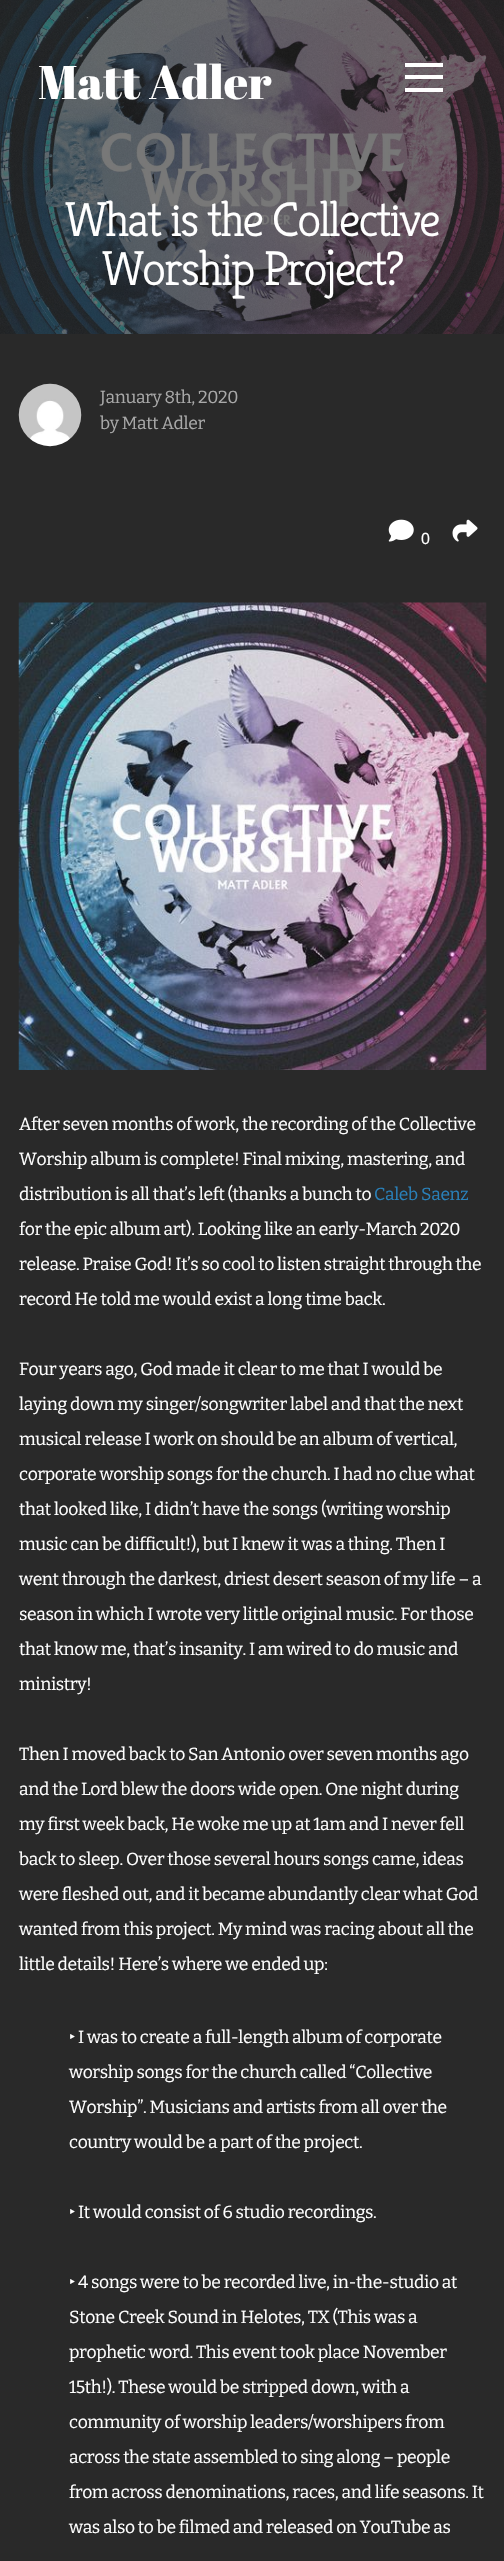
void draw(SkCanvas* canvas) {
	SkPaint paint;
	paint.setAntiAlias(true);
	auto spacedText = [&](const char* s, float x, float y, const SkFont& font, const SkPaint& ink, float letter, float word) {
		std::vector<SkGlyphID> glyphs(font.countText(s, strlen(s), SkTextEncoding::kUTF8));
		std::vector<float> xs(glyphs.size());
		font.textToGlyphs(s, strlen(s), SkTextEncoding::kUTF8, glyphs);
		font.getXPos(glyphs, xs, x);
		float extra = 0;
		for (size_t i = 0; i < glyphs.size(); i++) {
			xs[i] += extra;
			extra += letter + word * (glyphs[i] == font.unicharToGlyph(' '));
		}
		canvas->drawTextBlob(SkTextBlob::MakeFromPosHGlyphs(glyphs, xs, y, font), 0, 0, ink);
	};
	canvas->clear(0xffffffff);
	canvas->drawImageRect(SkImages::DeferredFromEncodedData(SkData::MakeFromFileName("img1.png")), SkRect::MakeXYWH(0, 0, 504, 334), SkSamplingOptions());
	SkFont f1(fontMgr->matchFamilyStyle("Abril Fatface", SkFontStyle::Normal()), 47);
	f1.setSubpixel(true);
	paint.setColor(0xffffffff);
	canvas->drawString("Matt Adler", 38, 99, f1, paint);
	canvas->drawRect(SkRect::MakeXYWH(405, 63, 38, 4), paint);
	canvas->drawRect(SkRect::MakeXYWH(405, 75, 38, 4), paint);
	canvas->drawRect(SkRect::MakeXYWH(405, 88, 38, 4), paint);
	SkFont f2(fontMgr->matchFamilyStyle("Kreon", SkFontStyle(300, SkFontStyle::kNormal_Width, SkFontStyle::kUpright_Slant)), 49);
	f2.setSubpixel(true);
	spacedText("What is the Collective", 65, 236, f2, paint, -2, 0);
	spacedText("Worship Project?", 102, 285, f2, paint, -2, 0);
	paint.setColor(0xff292929);
	canvas->drawRect(SkRect::MakeXYWH(0, 334, 504, 2227), paint);
	canvas->drawImageRect(SkImages::DeferredFromEncodedData(SkData::MakeFromFileName("img2.png")), SkRect::MakeXYWH(18, 383, 64, 64), SkSamplingOptions());
	SkFont f3(fontMgr->matchFamilyStyle("Bitter", SkFontStyle::Normal()), 17.5);
	f3.setSubpixel(true);
	paint.setColor(0xffa9a9a9);
	spacedText("January 8th, 2020", 100, 403, f3, paint, -0.35, 0);
	spacedText("by Matt Adler", 100, 429, f3, paint, -0.35, 0);
	canvas->drawImageRect(SkImages::DeferredFromEncodedData(SkData::MakeFromFileName("img3.png")), SkRect::MakeXYWH(388, 519, 26, 23), SkSamplingOptions());
	SkFont f4(fontMgr->matchFamilyStyle("Liberation Sans", SkFontStyle::Normal()), 16);
	f4.setSubpixel(true);
	paint.setColor(0xffffffff);
	spacedText("0", 421, 544, f4, paint, -0.35, 0);
	canvas->drawImageRect(SkImages::DeferredFromEncodedData(SkData::MakeFromFileName("img4.png")), SkRect::MakeXYWH(452, 519, 26, 23), SkSamplingOptions());
	canvas->drawImageRect(SkImages::DeferredFromEncodedData(SkData::MakeFromFileName("img5.png")), SkRect::MakeXYWH(18, 602, 469, 468), SkSamplingOptions());
	spacedText("After seven months of work, the recording of the Collective", 19, 1130, f3, paint, -0.35, 0);
	spacedText("Worship album is complete! Final mixing, mastering, and", 19, 1165, f3, paint, -0.35, 0);
	spacedText("distribution is all that’s left (thanks a bunch to", 19, 1200, f3, paint, -0.35, 0);
	paint.setColor(0xff2980b9);
	spacedText("Caleb Saenz", 374, 1200, f3, paint, -0.35, 0);
	paint.setColor(0xffffffff);
	spacedText("for the epic album art). Looking like an early-March 2020", 19, 1235, f3, paint, -0.35, 0);
	spacedText("release. Praise God! It’s so cool to listen straight through the", 19, 1270, f3, paint, -0.35, 0);
	spacedText("record He told me would exist a long time back.", 19, 1305, f3, paint, -0.35, 0);
	spacedText("Four years ago, God made it clear to me that I would be", 19, 1375, f3, paint, -0.35, 0);
	spacedText("laying down my singer/songwriter label and that the next", 19, 1410, f3, paint, -0.35, 0);
	spacedText("musical release I work on should be an album of vertical,", 19, 1445, f3, paint, -0.35, 0);
	spacedText("corporate worship songs for the church. I had no clue what", 19, 1480, f3, paint, -0.35, 0);
	spacedText("that looked like, I didn’t have the songs (writing worship", 19, 1515, f3, paint, -0.35, 0);
	spacedText("music can be difficult!), but I knew it was a thing. Then I", 19, 1550, f3, paint, -0.35, 0);
	spacedText("went through the darkest, driest desert season of my life – a", 19, 1585, f3, paint, -0.35, 0);
	spacedText("season in which I wrote very little original music. For those", 19, 1620, f3, paint, -0.35, 0);
	spacedText("that know me, that’s insanity. I am wired to do music and", 19, 1655, f3, paint, -0.35, 0);
	spacedText("ministry!", 19, 1690, f3, paint, -0.35, 0);
	spacedText("Then I moved back to San Antonio over seven months ago", 19, 1760, f3, paint, -0.35, 0);
	spacedText("and the Lord blew the doors wide open. One night during", 19, 1795, f3, paint, -0.35, 0);
	spacedText("my first week back, He woke me up at 1am and I never fell", 19, 1830, f3, paint, -0.35, 0);
	spacedText("back to sleep. Over those several hours songs came, ideas", 19, 1865, f3, paint, -0.35, 0);
	spacedText("were fleshed out, and it became abundantly clear what God", 19, 1900, f3, paint, -0.35, 0);
	spacedText("wanted from this project. My mind was racing about all the", 19, 1935, f3, paint, -0.35, 0);
	spacedText("little details! Here’s where we ended up:", 19, 1970, f3, paint, -0.35, 0);
	SkFont f5(fontMgr->matchFamilyStyle("Noto Sans", SkFontStyle::Normal()), 17.5);
	f5.setSubpixel(true);
	spacedText("‣", 69, 2043, f5, paint, -0.35, 0);
	spacedText("I was to create a full-length album of corporate", 78, 2043, f3, paint, -0.35, 0);
	spacedText("worship songs for the church called “Collective", 69, 2078, f3, paint, -0.35, 0);
	spacedText("Worship”. Musicians and artists from all over the", 69, 2113, f3, paint, -0.35, 0);
	spacedText("country would be a part of the project.", 69, 2148, f3, paint, -0.35, 0);
	spacedText("‣", 69, 2218, f5, paint, -0.35, 0);
	spacedText("It would consist of 6 studio recordings.", 78, 2218, f3, paint, -0.35, 0);
	spacedText("‣", 69, 2288, f5, paint, -0.35, 0);
	spacedText("4 songs were to be recorded live, in-the-studio at", 78, 2288, f3, paint, -0.35, 0);
	spacedText("Stone Creek Sound in Helotes, TX (This was a", 69, 2323, f3, paint, -0.35, 0);
	spacedText("prophetic word. This event took place November", 69, 2358, f3, paint, -0.35, 0);
	spacedText("15th!). These would be stripped down, with a", 69, 2393, f3, paint, -0.35, 0);
	spacedText("community of worship leaders/worshipers from", 69, 2428, f3, paint, -0.35, 0);
	spacedText("across the state assembled to sing along – people", 69, 2463, f3, paint, -0.35, 0);
	spacedText("from across denominations, races, and life seasons. It", 69, 2498, f3, paint, -0.35, 0);
	spacedText("was also to be filmed and released on YouTube as", 69, 2533, f3, paint, -0.35, 0);
}
